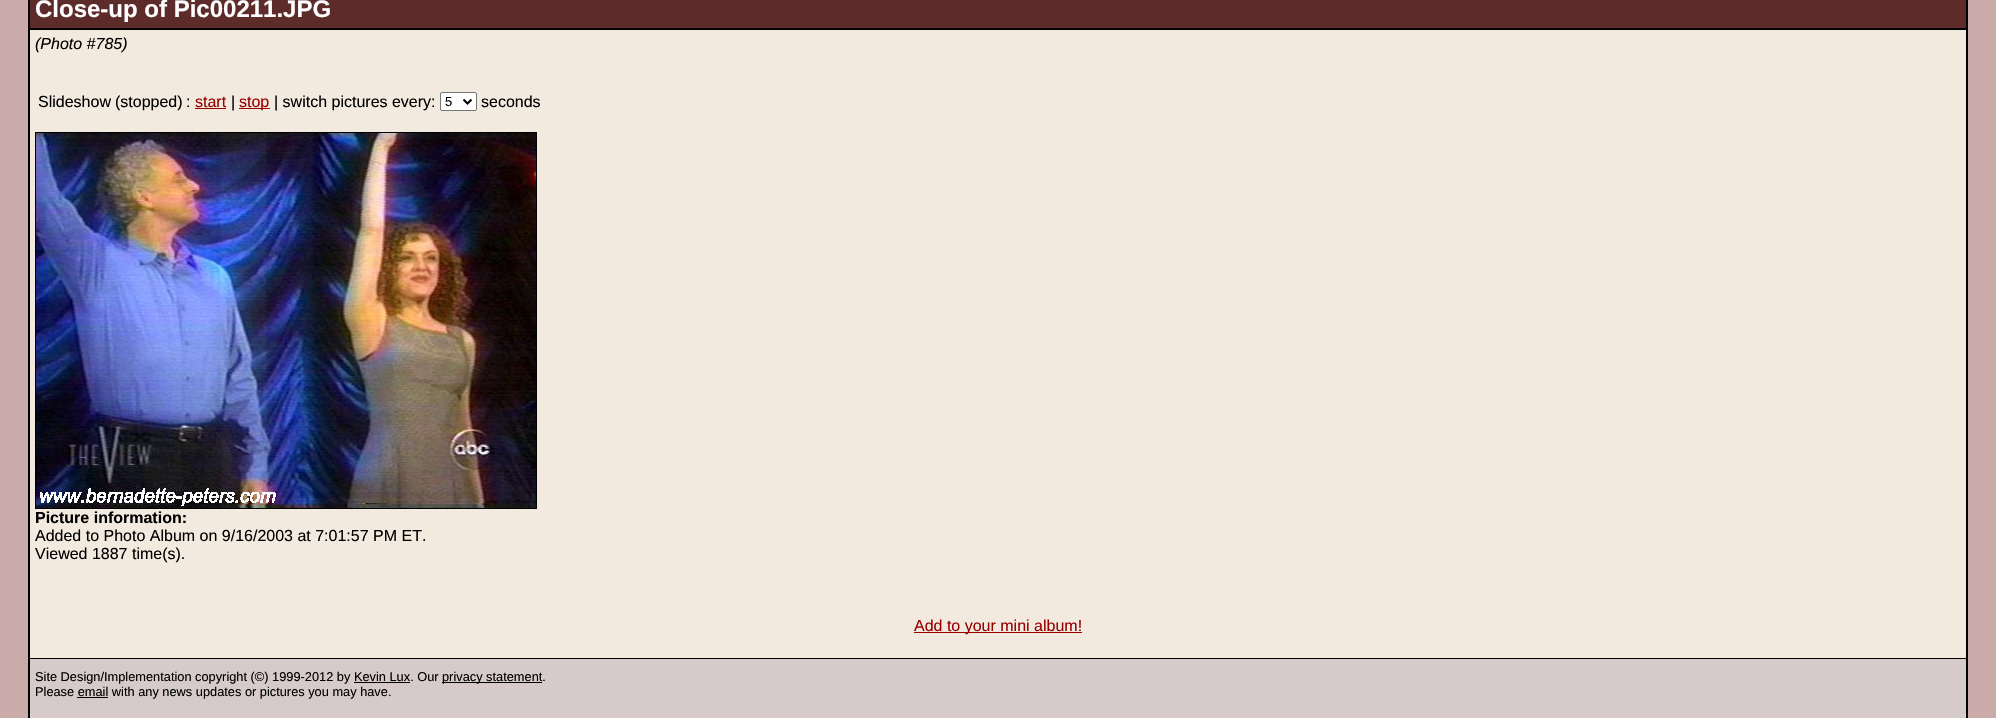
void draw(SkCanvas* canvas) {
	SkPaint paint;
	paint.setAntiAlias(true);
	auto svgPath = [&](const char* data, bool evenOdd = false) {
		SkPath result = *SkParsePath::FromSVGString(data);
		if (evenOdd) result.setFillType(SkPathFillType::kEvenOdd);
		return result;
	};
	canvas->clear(0xffcbaaaa);
	paint.setStroke(true);
	paint.setStrokeWidth(2);
	paint.setColor(0xff000000);
	canvas->drawRect(SkRect::MakeXYWH(29, -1, 1938, 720), paint);
	paint.setStroke(false);
	paint.setColor(0xff5e2b2b);
	canvas->drawRect(SkRect::MakeXYWH(30, 0, 1936, 28), paint);
	paint.setColor(0xff000000);
	canvas->drawRect(SkRect::MakeXYWH(30, 28, 1936, 2), paint);
	SkFont f1(fontMgr->matchFamilyStyle("Liberation Sans", SkFontStyle::Bold()), 24);
	f1.setSubpixel(true);
	paint.setColor(0xffffffff);
	canvas->drawString("Close-up of Pic00211.JPG", 35, 17, f1, paint);
	paint.setColor(0xfff2eade);
	canvas->drawRect(SkRect::MakeXYWH(30, 30, 1936, 628), paint);
	SkFont f2(fontMgr->matchFamilyStyle("Liberation Sans", SkFontStyle::Italic()), 16);
	f2.setSubpixel(true);
	paint.setColor(0xff000000);
	canvas->drawString("(Photo #785)", 35, 49, f2, paint);
	SkFont f3(fontMgr->matchFamilyStyle("Liberation Sans", SkFontStyle::Normal()), 16);
	f3.setSubpixel(true);
	canvas->drawString("Slideshow", 38, 107, f3, paint);
	canvas->drawString("(stopped)", 115, 107, f3, paint);
	canvas->drawString(":", 186, 107, f3, paint);
	paint.setColor(0xff990000);
	canvas->drawString("start", 195, 107, f3, paint);
	canvas->drawRect(SkRect::MakeXYWH(195, 108, 31, 1), paint);
	paint.setColor(0xff000000);
	canvas->drawString("|", 231, 107, f3, paint);
	paint.setColor(0xff990000);
	canvas->drawRect(SkRect::MakeXYWH(239, 108, 31, 1), paint);
	canvas->drawString("stop", 239, 107, f3, paint);
	paint.setColor(0xff000000);
	canvas->drawString("| switch pictures every:", 274, 107, f3, paint);
	paint.setColor(0xffffffff);
	canvas->drawRoundRect(SkRect::MakeXYWH(440.5, 92.5, 36, 18), 1.5, 1.5, paint);
	paint.setStroke(true);
	paint.setStrokeWidth(1);
	paint.setColor(0xff767676);
	canvas->drawRoundRect(SkRect::MakeXYWH(440.5, 92.5, 36, 18), 1.5, 1.5, paint);
	paint.setStrokeWidth(2);
	paint.setColor(0xff000000);
	canvas->drawPath(svgPath("M463.5 99.5L467.5 103.5L471.5 99.5"), paint);
	SkFont f4(fontMgr->matchFamilyStyle("Liberation Sans", SkFontStyle::Normal()), 13);
	f4.setSubpixel(true);
	paint.setStroke(false);
	canvas->drawString("5", 445, 106, f4, paint);
	canvas->drawString("seconds", 481, 107, f3, paint);
	paint.setStroke(true);
	paint.setStrokeWidth(1);
	canvas->drawRect(SkRect::MakeXYWH(35.5, 132.5, 501, 376), paint);
	canvas->drawImageRect(SkImages::DeferredFromEncodedData(SkData::MakeFromFileName("img1.png")), SkRect::MakeXYWH(36, 133, 500, 375), SkSamplingOptions());
	SkFont f5(fontMgr->matchFamilyStyle("Liberation Sans", SkFontStyle::Bold()), 16);
	f5.setSubpixel(true);
	paint.setStroke(false);
	canvas->drawString("Picture information:", 35, 523, f5, paint);
	canvas->drawString("Added to Photo Album on 9/16/2003 at 7:01:57 PM ET.", 35, 541, f3, paint);
	canvas->drawString("Viewed 1887 time(s).", 35, 559, f3, paint);
	paint.setColor(0xff990000);
	canvas->drawRect(SkRect::MakeXYWH(914, 632, 168, 1), paint);
	canvas->drawString("Add to your mini album!", 914, 631, f3, paint);
	paint.setColor(0xffd7caca);
	canvas->drawRect(SkRect::MakeXYWH(30, 659, 1936, 59), paint);
	paint.setColor(0xff000000);
	canvas->drawRect(SkRect::MakeXYWH(30, 658, 1936, 1), paint);
	SkFont f6(fontMgr->matchFamilyStyle("Liberation Sans", SkFontStyle::Normal()), 12.8);
	f6.setSubpixel(true);
	canvas->drawString("Site Design/Implementation copyright (©) 1999-2012 by Kevin Lux. Our", 35, 681, f6, paint);
	canvas->drawRect(SkRect::MakeXYWH(442, 682, 100, 1), paint);
	canvas->drawString("privacy statement.", 442, 681, f6, paint);
	canvas->drawRect(SkRect::MakeXYWH(354, 682, 56, 1), paint);
	canvas->drawString("Please email with any news updates or pictures you may have.", 35, 696, f6, paint);
	canvas->drawRect(SkRect::MakeXYWH(77, 697, 31, 1), paint);
}
